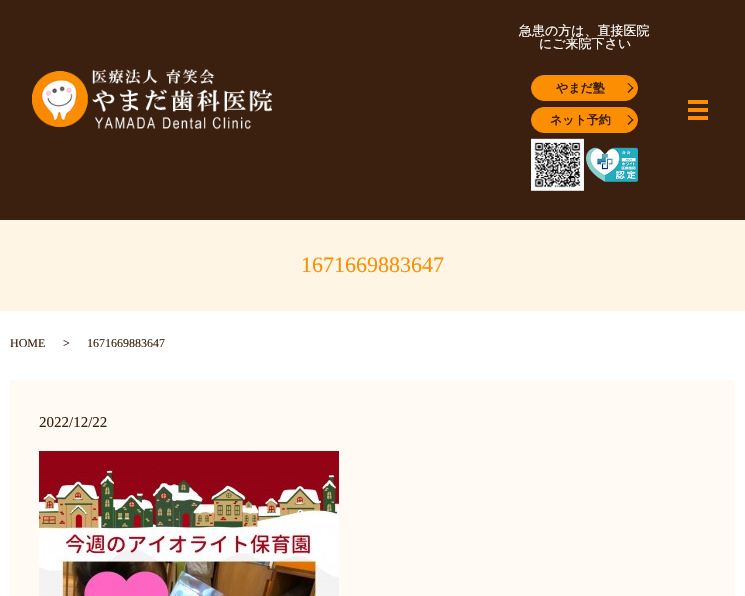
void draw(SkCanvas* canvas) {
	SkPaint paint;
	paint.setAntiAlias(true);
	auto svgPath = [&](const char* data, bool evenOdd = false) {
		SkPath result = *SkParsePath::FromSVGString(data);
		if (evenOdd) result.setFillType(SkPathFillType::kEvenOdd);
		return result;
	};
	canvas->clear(0xffffffff);
	paint.setColor(0xff3b200f);
	canvas->drawRect(SkRect::MakeXYWH(0, 0, 745, 220), paint);
	canvas->drawImageRect(SkImages::DeferredFromEncodedData(SkData::MakeFromFileName("img1.png")), SkRect::MakeXYWH(32, 68, 240, 62), SkSamplingOptions());
	SkFont f1(fontMgr->matchFamilyStyle("WenQuanYi Zen Hei", SkFontStyle(500, SkFontStyle::kNormal_Width, SkFontStyle::kUpright_Slant)), 13);
	f1.setSubpixel(true);
	paint.setColor(0xffffffff);
	canvas->drawString("急患の方は、直接医院", 519, 35, f1, paint);
	canvas->drawString("にご来院下さい", 539, 48, f1, paint);
	paint.setColor(0xfffc8e03);
	canvas->drawRoundRect(SkRect::MakeXYWH(531.5, 75.5, 106, 25), 12.5, 12.5, paint);
	paint.setStroke(true);
	paint.setStrokeWidth(1);
	canvas->drawRoundRect(SkRect::MakeXYWH(531.5, 75.5, 106, 25), 12.5, 12.5, paint);
	SkFont f2(fontMgr->matchFamilyStyle("WenQuanYi Zen Hei", SkFontStyle::Bold()), 12);
	f2.setSubpixel(true);
	paint.setStroke(false);
	paint.setColor(0xff3b200f);
	canvas->drawString("やまだ塾", 556, 92, f2, paint);
	canvas->drawPath(svgPath("M628.5 83L633.5 88L632.5 88.5L627.5 83.5Z"), paint);
	canvas->drawPath(svgPath("M632.5 87L633.5 88L628.5 93L627.5 92Z"), paint);
	paint.setColor(0xfffc8e03);
	canvas->drawRoundRect(SkRect::MakeXYWH(531.5, 107.5, 106, 25), 12.5, 12.5, paint);
	paint.setStroke(true);
	canvas->drawRoundRect(SkRect::MakeXYWH(531.5, 107.5, 106, 25), 12.5, 12.5, paint);
	paint.setStroke(false);
	paint.setColor(0xff3b200f);
	canvas->drawString("ネット予約", 550, 124, f2, paint);
	canvas->drawPath(svgPath("M628.5 115L633.5 120L632.5 120.5L627.5 115.5Z"), paint);
	canvas->drawPath(svgPath("M632.5 119L633.5 120L628.5 125L627.5 124Z"), paint);
	canvas->drawImageRect(SkImages::DeferredFromEncodedData(SkData::MakeFromFileName("img2.png")), SkRect::MakeXYWH(531, 138, 53, 53), SkSamplingOptions());
	canvas->drawImageRect(SkImages::DeferredFromEncodedData(SkData::MakeFromFileName("img3.png")), SkRect::MakeXYWH(586, 147, 52, 35), SkSamplingOptions());
	paint.setColor(0xfffc8e03);
	canvas->drawRect(SkRect::MakeXYWH(688, 100, 20, 4), paint);
	canvas->drawRect(SkRect::MakeXYWH(688, 108, 20, 4), paint);
	canvas->drawRect(SkRect::MakeXYWH(688, 116, 20, 4), paint);
	paint.setColor(0xfffff5e5);
	canvas->drawRect(SkRect::MakeXYWH(0, 220, 745, 91), paint);
	SkFont f3(fontMgr->matchFamilyStyle("Liberation Serif", SkFontStyle::Normal()), 22);
	f3.setSubpixel(true);
	paint.setColor(0xfffc8e03);
	canvas->drawString("1671669883647", 301, 272, f3, paint);
	SkFont f4(fontMgr->matchFamilyStyle("Liberation Serif", SkFontStyle::Normal()), 12);
	f4.setSubpixel(true);
	paint.setColor(0xff3b200f);
	canvas->drawString("HOME", 10, 347, f4, paint);
	canvas->drawString(">", 63, 347, f4, paint);
	canvas->drawString("1671669883647", 87, 347, f4, paint);
	paint.setColor(0xfffffaf3);
	canvas->drawRect(SkRect::MakeXYWH(10, 380, 725, 216), paint);
	SkFont f5(fontMgr->matchFamilyStyle("Liberation Serif", SkFontStyle::Normal()), 15);
	f5.setSubpixel(true);
	paint.setColor(0xff3b200f);
	canvas->drawString("2022/12/22", 39, 427, f5, paint);
	canvas->drawImageRect(SkImages::DeferredFromEncodedData(SkData::MakeFromFileName("img4.png")), SkRect::MakeXYWH(39, 451, 300, 145), SkSamplingOptions());
}
